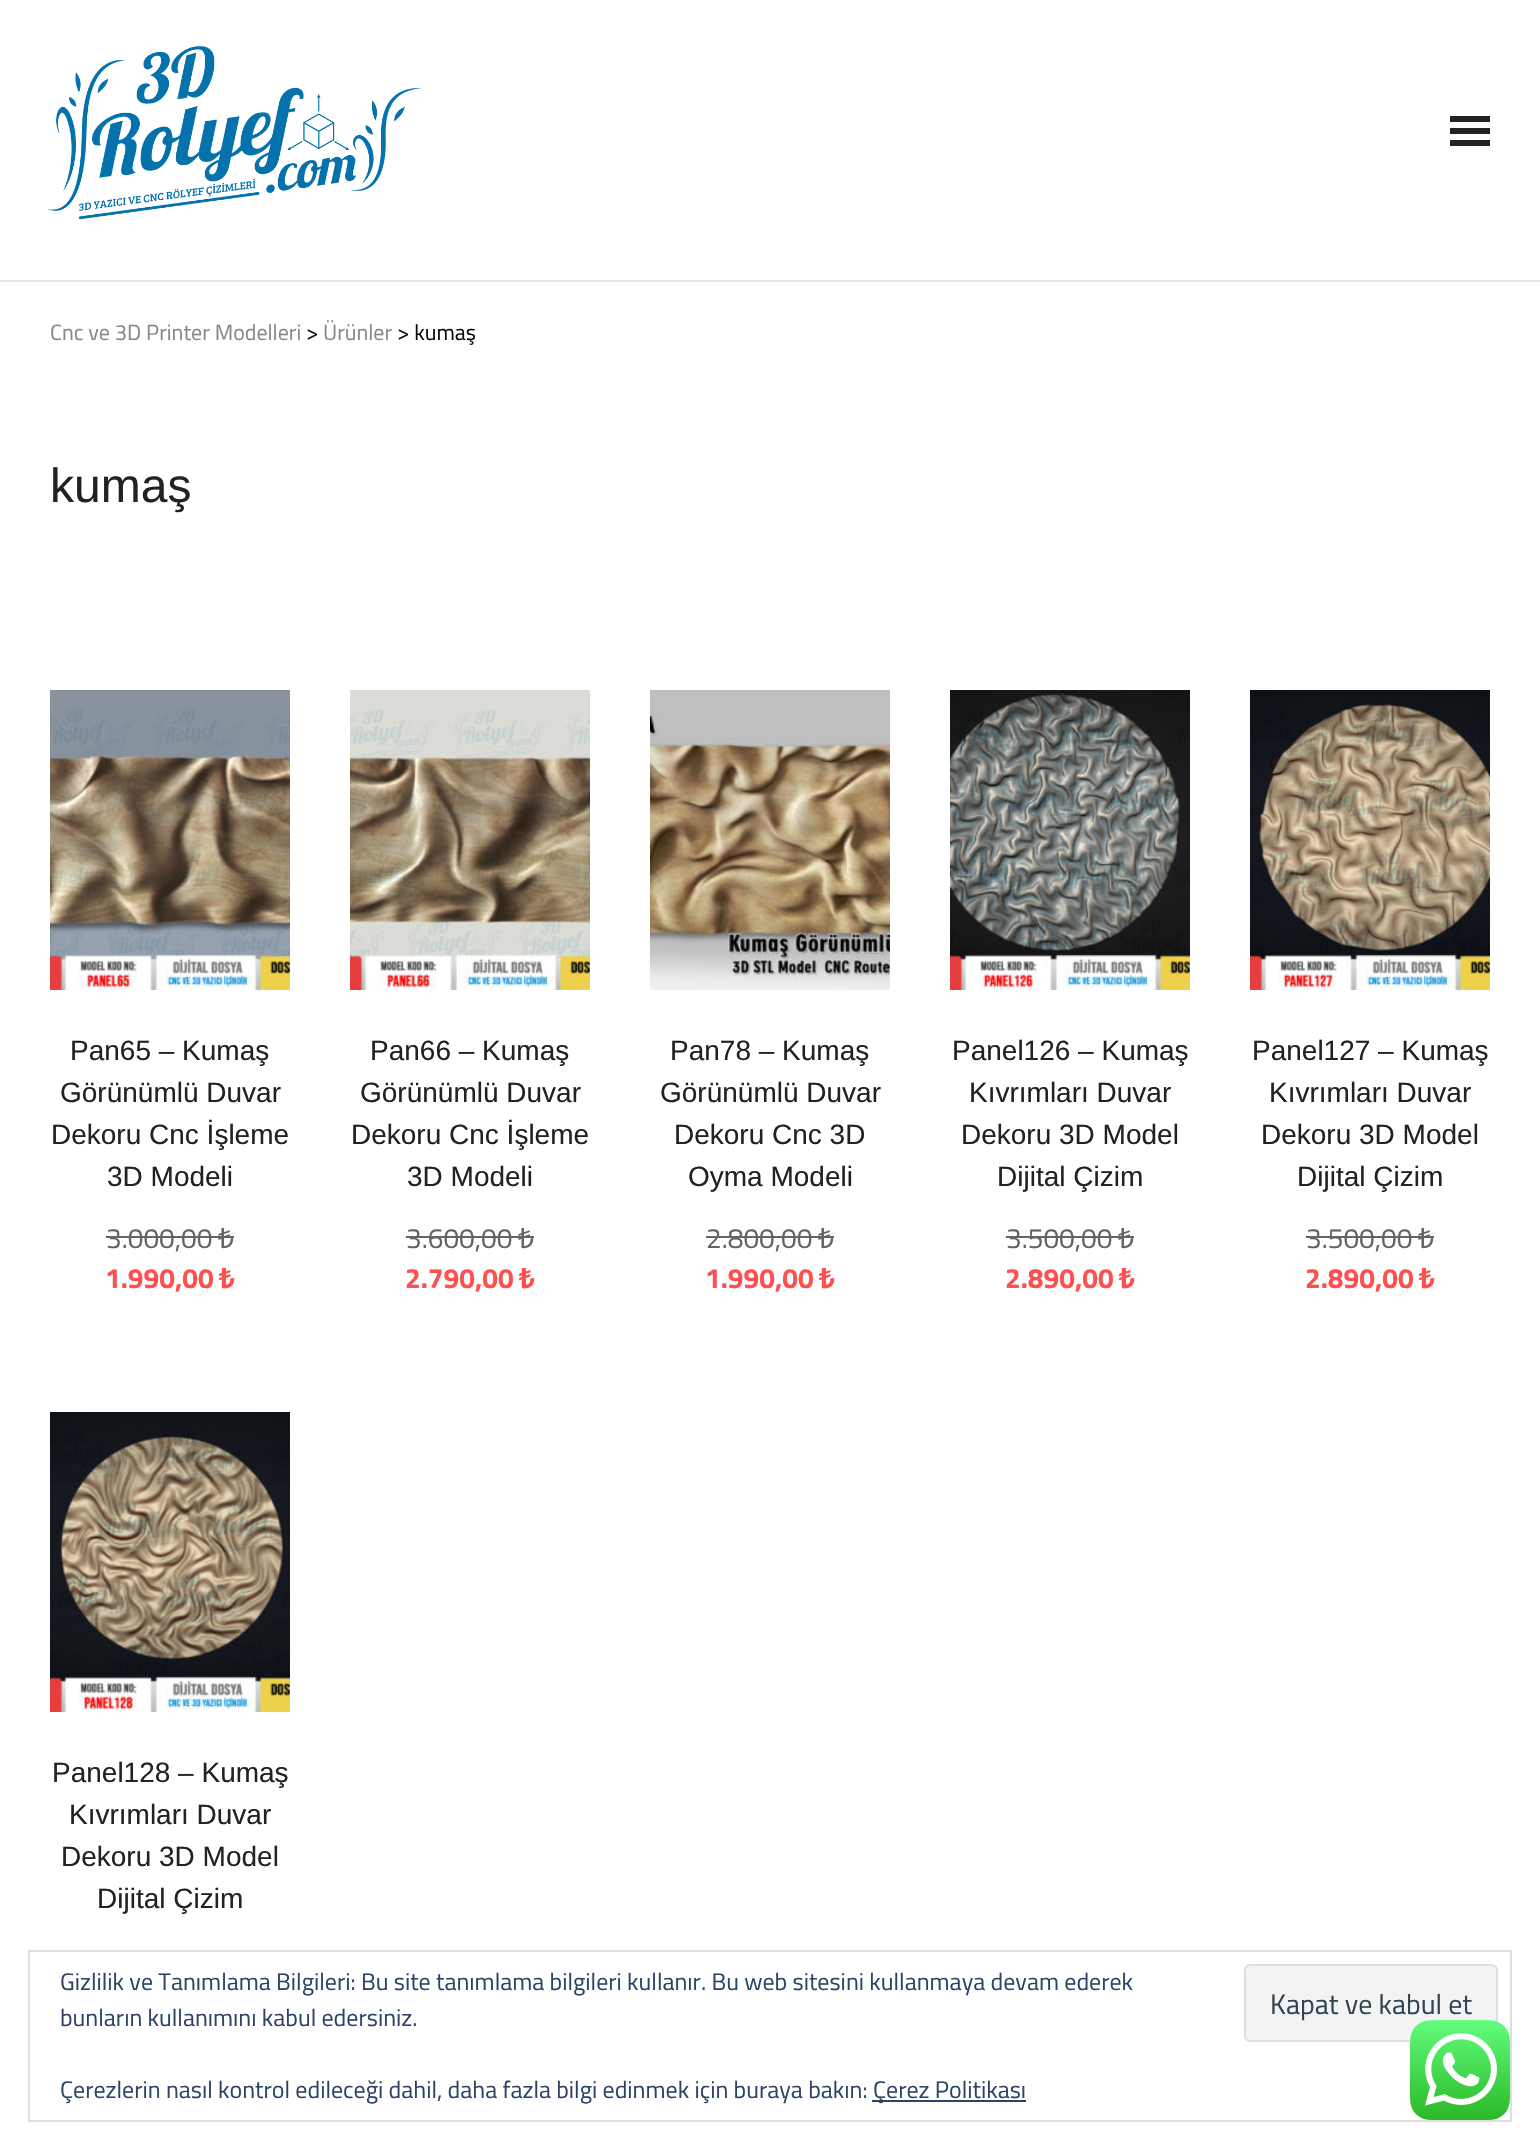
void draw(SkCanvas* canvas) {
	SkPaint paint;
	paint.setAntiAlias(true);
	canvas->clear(0xffffffff);
	paint.setColor(0xffe4e4e4);
	canvas->drawRect(SkRect::MakeXYWH(0, 280, 1540, 2), paint);
	canvas->drawImageRect(SkImages::DeferredFromEncodedData(SkData::MakeFromFileName("img1.png")), SkRect::MakeXYWH(47, 46, 375, 174), SkSamplingOptions());
	paint.setColor(0xff222222);
	canvas->drawRect(SkRect::MakeXYWH(1450, 128, 40, 6), paint);
	canvas->drawRect(SkRect::MakeXYWH(1450, 116, 40, 6), paint);
	canvas->drawRect(SkRect::MakeXYWH(1450, 140, 40, 6), paint);
	SkFont f1(fontMgr->matchFamilyStyle("Titillium Web", SkFontStyle::Normal()), 22);
	f1.setSubpixel(true);
	paint.setColor(0xff878787);
	canvas->drawString("Cnc ve 3D Printer Modelleri", 50, 340, f1, paint);
	paint.setColor(0xff0a0a0a);
	canvas->drawString(">", 306, 340, f1, paint);
	paint.setColor(0xff878787);
	canvas->drawString("Ürünler", 323, 340, f1, paint);
	paint.setColor(0xff0a0a0a);
	canvas->drawString("> kumaş", 397, 340, f1, paint);
	SkFont f2(fontMgr->matchFamilyStyle("Liberation Sans", SkFontStyle::Normal()), 48);
	f2.setSubpixel(true);
	paint.setColor(0xff222222);
	canvas->drawString("kumaş", 50, 502, f2, paint);
	canvas->drawImageRect(SkImages::DeferredFromEncodedData(SkData::MakeFromFileName("img2.png")), SkRect::MakeXYWH(50, 690, 240, 300), SkSamplingOptions());
	SkFont f3(fontMgr->matchFamilyStyle("Liberation Sans", SkFontStyle::Normal()), 28);
	f3.setSubpixel(true);
	canvas->drawString("Pan65 – Kumaş", 70, 1060, f3, paint);
	canvas->drawString("Görünümlü Duvar", 60, 1102, f3, paint);
	canvas->drawString("Dekoru Cnc İşleme", 51, 1144, f3, paint);
	canvas->drawString("3D Modeli", 107, 1186, f3, paint);
	SkFont f4(fontMgr->matchFamilyStyle("Titillium Web", SkFontStyle::Normal()), 28);
	f4.setSubpixel(true);
	paint.setColor(0xff646464);
	canvas->drawString("3.000,00", 106, 1248, f4, paint);
	SkFont f5(fontMgr->matchFamilyStyle("Noto Sans", SkFontStyle::Normal()), 28);
	f5.setSubpixel(true);
	canvas->drawString("₺", 218, 1248, f5, paint);
	canvas->drawRect(SkRect::MakeXYWH(106, 1236, 112, 2), paint);
	canvas->drawRect(SkRect::MakeXYWH(218, 1236, 16, 2), paint);
	SkFont f6(fontMgr->matchFamilyStyle("Titillium Web", SkFontStyle::Bold()), 28);
	f6.setSubpixel(true);
	paint.setColor(0xfffe504f);
	canvas->drawString("1.990,00", 105, 1288, f6, paint);
	SkFont f7(fontMgr->matchFamilyStyle("Noto Sans", SkFontStyle::Bold()), 28);
	f7.setSubpixel(true);
	canvas->drawString("₺", 219, 1288, f7, paint);
	canvas->drawImageRect(SkImages::DeferredFromEncodedData(SkData::MakeFromFileName("img3.png")), SkRect::MakeXYWH(350, 690, 240, 300), SkSamplingOptions());
	paint.setColor(0xff222222);
	canvas->drawString("Pan66 – Kumaş", 370, 1060, f3, paint);
	canvas->drawString("Görünümlü Duvar", 360, 1102, f3, paint);
	canvas->drawString("Dekoru Cnc İşleme", 351, 1144, f3, paint);
	canvas->drawString("3D Modeli", 407, 1186, f3, paint);
	paint.setColor(0xff646464);
	canvas->drawString("3.600,00", 406, 1248, f4, paint);
	canvas->drawString("₺", 518, 1248, f5, paint);
	canvas->drawRect(SkRect::MakeXYWH(406, 1236, 112, 2), paint);
	canvas->drawRect(SkRect::MakeXYWH(518, 1236, 16, 2), paint);
	paint.setColor(0xfffe504f);
	canvas->drawString("2.790,00", 405, 1288, f6, paint);
	canvas->drawString("₺", 519, 1288, f7, paint);
	canvas->drawImageRect(SkImages::DeferredFromEncodedData(SkData::MakeFromFileName("img4.png")), SkRect::MakeXYWH(650, 690, 240, 300), SkSamplingOptions());
	paint.setColor(0xff222222);
	canvas->drawString("Pan78 – Kumaş", 670, 1060, f3, paint);
	canvas->drawString("Görünümlü Duvar", 660, 1102, f3, paint);
	canvas->drawString("Dekoru Cnc 3D", 674, 1144, f3, paint);
	canvas->drawString("Oyma Modeli", 688, 1186, f3, paint);
	paint.setColor(0xff646464);
	canvas->drawString("2.800,00", 706, 1248, f4, paint);
	canvas->drawString("₺", 818, 1248, f5, paint);
	canvas->drawRect(SkRect::MakeXYWH(706, 1236, 112, 2), paint);
	canvas->drawRect(SkRect::MakeXYWH(818, 1236, 16, 2), paint);
	paint.setColor(0xfffe504f);
	canvas->drawString("1.990,00", 705, 1288, f6, paint);
	canvas->drawString("₺", 819, 1288, f7, paint);
	canvas->drawImageRect(SkImages::DeferredFromEncodedData(SkData::MakeFromFileName("img5.png")), SkRect::MakeXYWH(950, 690, 240, 300), SkSamplingOptions());
	paint.setColor(0xff222222);
	canvas->drawString("Panel126 – Kumaş", 952, 1060, f3, paint);
	canvas->drawString("Kıvrımları Duvar", 969, 1102, f3, paint);
	canvas->drawString("Dekoru 3D Model", 961, 1144, f3, paint);
	canvas->drawString("Dijital Çizim", 997, 1186, f3, paint);
	paint.setColor(0xff646464);
	canvas->drawString("3.500,00", 1006, 1248, f4, paint);
	canvas->drawString("₺", 1118, 1248, f5, paint);
	canvas->drawRect(SkRect::MakeXYWH(1006, 1236, 112, 2), paint);
	canvas->drawRect(SkRect::MakeXYWH(1118, 1236, 16, 2), paint);
	paint.setColor(0xfffe504f);
	canvas->drawString("2.890,00", 1005, 1288, f6, paint);
	canvas->drawString("₺", 1119, 1288, f7, paint);
	canvas->drawImageRect(SkImages::DeferredFromEncodedData(SkData::MakeFromFileName("img6.png")), SkRect::MakeXYWH(1250, 690, 240, 300), SkSamplingOptions());
	paint.setColor(0xff222222);
	canvas->drawString("Panel127 – Kumaş", 1252, 1060, f3, paint);
	canvas->drawString("Kıvrımları Duvar", 1269, 1102, f3, paint);
	canvas->drawString("Dekoru 3D Model", 1261, 1144, f3, paint);
	canvas->drawString("Dijital Çizim", 1297, 1186, f3, paint);
	paint.setColor(0xff646464);
	canvas->drawString("3.500,00", 1306, 1248, f4, paint);
	canvas->drawString("₺", 1418, 1248, f5, paint);
	canvas->drawRect(SkRect::MakeXYWH(1306, 1236, 112, 2), paint);
	canvas->drawRect(SkRect::MakeXYWH(1418, 1236, 16, 2), paint);
	paint.setColor(0xfffe504f);
	canvas->drawString("2.890,00", 1305, 1288, f6, paint);
	canvas->drawString("₺", 1419, 1288, f7, paint);
	canvas->drawImageRect(SkImages::DeferredFromEncodedData(SkData::MakeFromFileName("img7.png")), SkRect::MakeXYWH(50, 1412, 240, 300), SkSamplingOptions());
	paint.setColor(0xff222222);
	canvas->drawString("Panel128 – Kumaş", 52, 1782, f3, paint);
	canvas->drawString("Kıvrımları Duvar", 69, 1824, f3, paint);
	canvas->drawString("Dekoru 3D Model", 61, 1866, f3, paint);
	canvas->drawString("Dijital Çizim", 97, 1908, f3, paint);
	paint.setStroke(true);
	paint.setStrokeWidth(2);
	paint.setColor(0xffdedede);
	canvas->drawRect(SkRect::MakeXYWH(29, 1951, 1482, 170), paint);
	SkFont f8(fontMgr->matchFamilyStyle("Titillium Web", SkFontStyle::Normal()), 24);
	f8.setSubpixel(true);
	paint.setStroke(false);
	paint.setColor(0xff2e4467);
	canvas->drawString("Gizlilik ve Tanımlama Bilgileri: Bu site tanımlama bilgileri kullanır. Bu web sitesini kullanmaya devam ederek", 60, 1990, f8, paint);
	canvas->drawString("bunların kullanımını kabul edersiniz.", 60, 2026, f8, paint);
	paint.setColor(0xfff3f3f3);
	canvas->drawRoundRect(SkRect::MakeXYWH(1245, 1965, 252, 76), 5, 5, paint);
	paint.setStroke(true);
	paint.setColor(0xffdedede);
	canvas->drawRoundRect(SkRect::MakeXYWH(1245, 1965, 252, 76), 5, 5, paint);
	paint.setStroke(false);
	paint.setColor(0xff2e4453);
	canvas->drawString("Kapat ve kabul et", 1270, 2014, f4, paint);
	paint.setColor(0xff2e4467);
	canvas->drawString("Çerezlerin nasıl kontrol edileceği dahil, daha fazla bilgi edinmek için buraya bakın:", 60, 2098, f8, paint);
	canvas->drawRect(SkRect::MakeXYWH(872, 2100, 154, 2), paint);
	canvas->drawString("Çerez Politikası", 873, 2098, f8, paint);
	canvas->drawImageRect(SkImages::DeferredFromEncodedData(SkData::MakeFromFileName("img8.png")), SkRect::MakeXYWH(1410, 2020, 100, 100), SkSamplingOptions());
}
